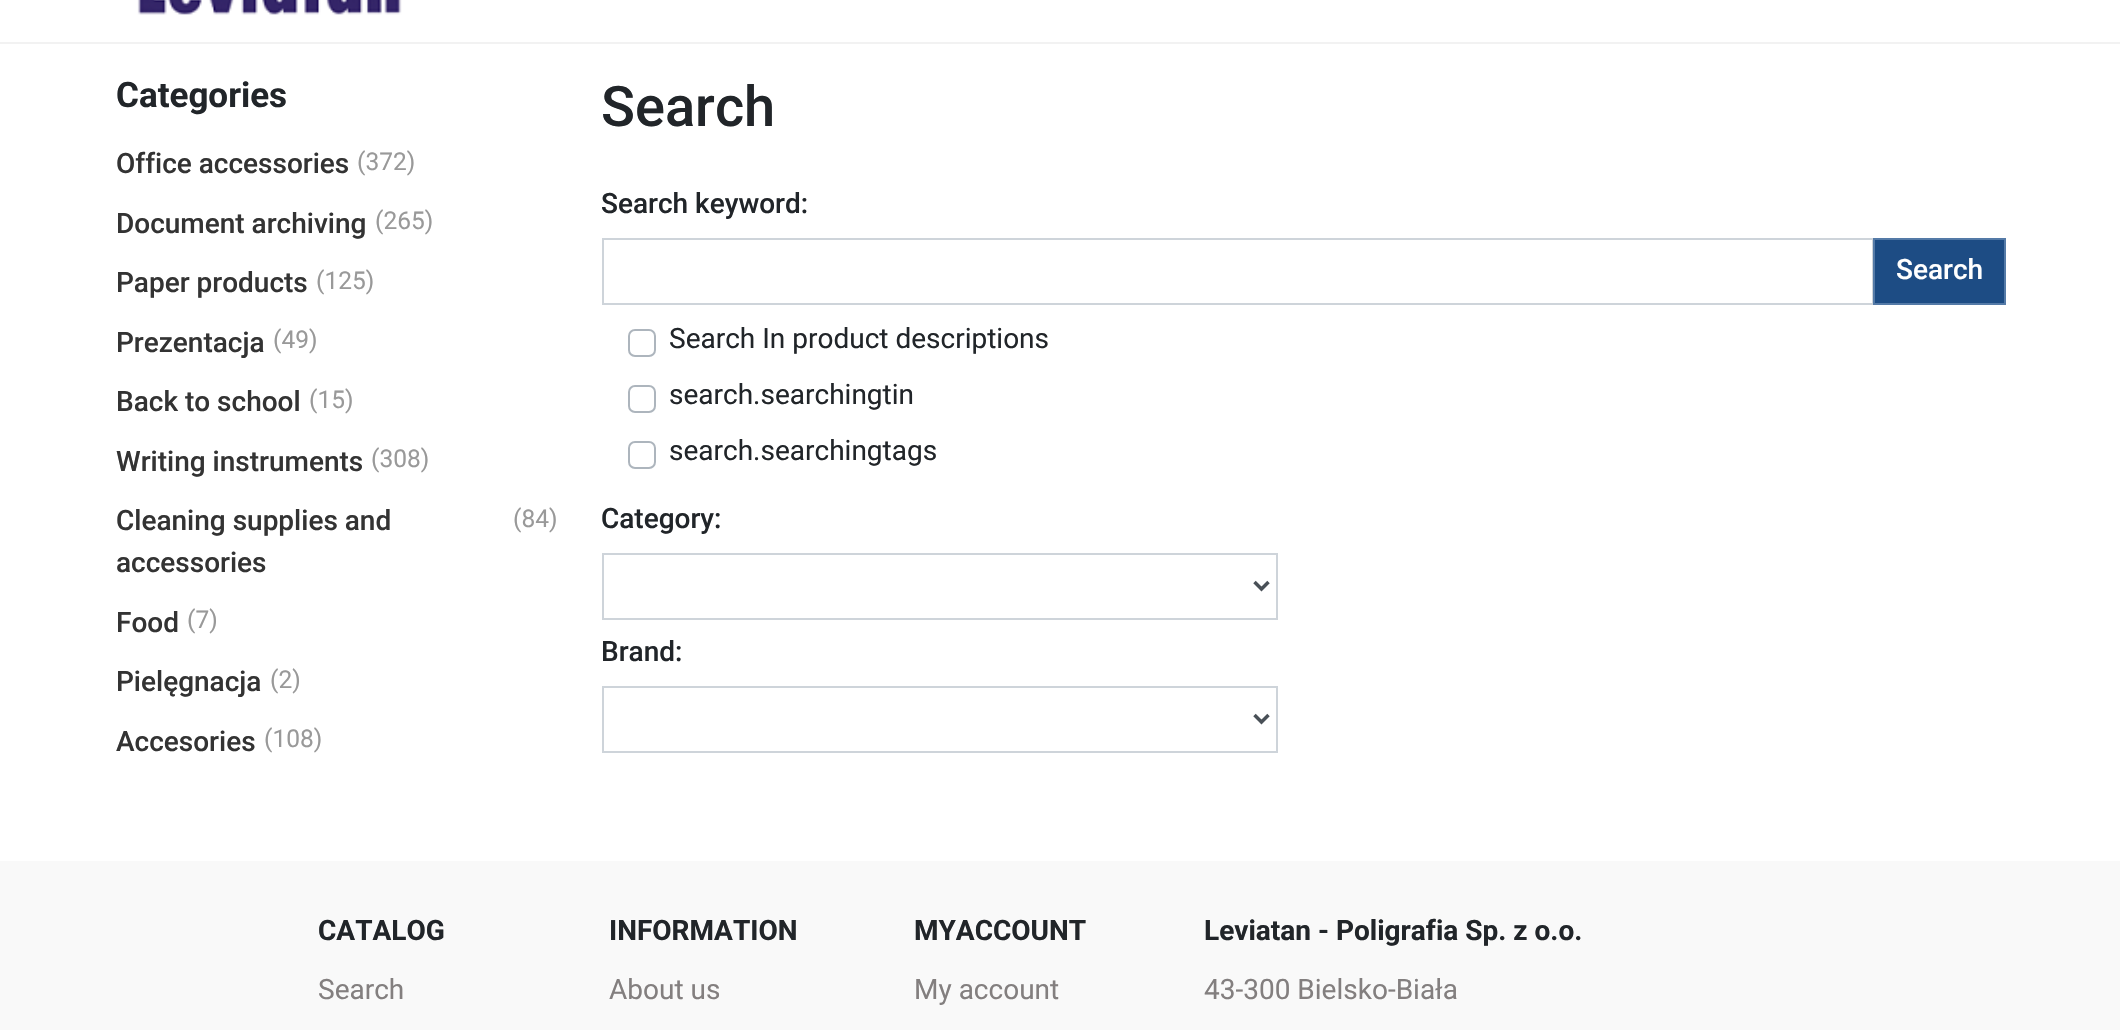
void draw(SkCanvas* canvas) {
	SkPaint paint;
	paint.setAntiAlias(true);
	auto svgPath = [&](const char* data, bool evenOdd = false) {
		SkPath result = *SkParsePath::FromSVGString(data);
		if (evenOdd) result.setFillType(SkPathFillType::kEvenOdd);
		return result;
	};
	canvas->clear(0xffffffff);
	paint.setColor(0xfff2f2f2);
	canvas->drawRect(SkRect::MakeXYWH(0, 42, 2120, 2), paint);
	canvas->drawImageRect(SkImages::DeferredFromEncodedData(SkData::MakeFromFileName("img1.png")), SkRect::MakeXYWH(137, 0, 265, 15), SkSamplingOptions());
	SkFont f1(fontMgr->matchFamilyStyle("Roboto", SkFontStyle::Bold()), 35);
	f1.setSubpixel(true);
	paint.setColor(0xff212529);
	canvas->drawString("Categories", 116, 107, f1, paint);
	SkFont f2(fontMgr->matchFamilyStyle("Roboto", SkFontStyle(500, SkFontStyle::kNormal_Width, SkFontStyle::kUpright_Slant)), 28);
	f2.setSubpixel(true);
	paint.setColor(0xff333333);
	canvas->drawString("Office accessories", 116, 173, f2, paint);
	SkFont f3(fontMgr->matchFamilyStyle("Roboto", SkFontStyle::Normal()), 24.5);
	f3.setSubpixel(true);
	paint.setColor(0xff999999);
	canvas->drawString("(372)", 357, 170, f3, paint);
	paint.setColor(0xff333333);
	canvas->drawString("Document archiving", 116, 233, f2, paint);
	paint.setColor(0xff999999);
	canvas->drawString("(265)", 375, 229, f3, paint);
	paint.setColor(0xff333333);
	canvas->drawString("Paper products", 116, 292, f2, paint);
	paint.setColor(0xff999999);
	canvas->drawString("(125)", 316, 289, f3, paint);
	paint.setColor(0xff333333);
	canvas->drawString("Prezentacja", 116, 352, f2, paint);
	paint.setColor(0xff999999);
	canvas->drawString("(49)", 273, 348, f3, paint);
	paint.setColor(0xff333333);
	canvas->drawString("Back to school", 116, 411, f2, paint);
	paint.setColor(0xff999999);
	canvas->drawString("(15)", 309, 408, f3, paint);
	paint.setColor(0xff333333);
	canvas->drawString("Writing instruments", 116, 471, f2, paint);
	paint.setColor(0xff999999);
	canvas->drawString("(308)", 371, 467, f3, paint);
	paint.setColor(0xff333333);
	canvas->drawString("Cleaning supplies and", 116, 530, f2, paint);
	paint.setColor(0xff999999);
	canvas->drawString("(84)", 513, 527, f3, paint);
	paint.setColor(0xff333333);
	canvas->drawString("accessories", 116, 572, f2, paint);
	canvas->drawString("Food", 116, 632, f2, paint);
	paint.setColor(0xff999999);
	canvas->drawString("(7)", 187, 628, f3, paint);
	paint.setColor(0xff333333);
	canvas->drawString("Pielęgnacja", 116, 691, f2, paint);
	paint.setColor(0xff999999);
	canvas->drawString("(2)", 270, 688, f3, paint);
	paint.setColor(0xff333333);
	canvas->drawString("Accesories", 116, 751, f2, paint);
	paint.setColor(0xff999999);
	canvas->drawString("(108)", 264, 747, f3, paint);
	SkFont f4(fontMgr->matchFamilyStyle("Roboto", SkFontStyle(500, SkFontStyle::kNormal_Width, SkFontStyle::kUpright_Slant)), 56);
	f4.setSubpixel(true);
	paint.setColor(0xff212529);
	canvas->drawString("Search", 601, 126, f4, paint);
	canvas->drawString("Search keyword:", 601, 213, f2, paint);
	paint.setStroke(true);
	paint.setStrokeWidth(2);
	paint.setColor(0xffced4da);
	canvas->drawRect(SkRect::MakeXYWH(603, 239, 1270, 65), paint);
	paint.setStroke(false);
	paint.setColor(0xff1d4c84);
	canvas->drawRect(SkRect::MakeXYWH(1874, 239, 131, 65), paint);
	paint.setStroke(true);
	paint.setColor(0xff547aa7);
	canvas->drawRect(SkRect::MakeXYWH(1874, 239, 131, 65), paint);
	paint.setStroke(false);
	paint.setColor(0xffffffff);
	canvas->drawString("Search", 1896, 279, f2, paint);
	paint.setStroke(true);
	paint.setColor(0xffadb5bd);
	canvas->drawRoundRect(SkRect::MakeXYWH(629, 330, 26, 26), 6, 6, paint);
	SkFont f5(fontMgr->matchFamilyStyle("Roboto", SkFontStyle::Normal()), 28);
	f5.setSubpixel(true);
	paint.setStroke(false);
	paint.setColor(0xff212529);
	canvas->drawString("Search In product descriptions", 669, 348, f5, paint);
	paint.setStroke(true);
	paint.setColor(0xffadb5bd);
	canvas->drawRoundRect(SkRect::MakeXYWH(629, 386, 26, 26), 6, 6, paint);
	paint.setStroke(false);
	paint.setColor(0xff212529);
	canvas->drawString("search.searchingtin", 669, 404, f5, paint);
	paint.setStroke(true);
	paint.setColor(0xffadb5bd);
	canvas->drawRoundRect(SkRect::MakeXYWH(629, 442, 26, 26), 6, 6, paint);
	paint.setStroke(false);
	paint.setColor(0xff212529);
	canvas->drawString("search.searchingtags", 669, 460, f5, paint);
	canvas->drawString("Category:", 601, 528, f2, paint);
	paint.setStroke(true);
	paint.setColor(0xffced4da);
	canvas->drawRect(SkRect::MakeXYWH(603, 554, 674, 65), paint);
	paint.setStrokeWidth(3.5);
	paint.setColor(0xff495057);
	canvas->drawPath(svgPath("M1254.5 582L1261.5 589L1268.5 582"), paint);
	paint.setStroke(false);
	paint.setColor(0xff212529);
	canvas->drawString("Brand:", 601, 661, f2, paint);
	paint.setStroke(true);
	paint.setStrokeWidth(2);
	paint.setColor(0xffced4da);
	canvas->drawRect(SkRect::MakeXYWH(603, 687, 674, 65), paint);
	paint.setStrokeWidth(3.5);
	paint.setColor(0xff495057);
	canvas->drawPath(svgPath("M1254.5 715L1261.5 722L1268.5 715"), paint);
	paint.setStroke(false);
	paint.setColor(0xfff9f9f9);
	canvas->drawRect(SkRect::MakeXYWH(0, 861, 2120, 169), paint);
	SkFont f6(fontMgr->matchFamilyStyle("Roboto", SkFontStyle::Bold()), 28);
	f6.setSubpixel(true);
	paint.setColor(0xff212529);
	canvas->drawString("CATALOG", 318, 940, f6, paint);
	paint.setColor(0xff837f7f);
	canvas->drawString("Search", 318, 999, f5, paint);
	paint.setColor(0xff212529);
	canvas->drawString("INFORMATION", 609, 940, f6, paint);
	paint.setColor(0xff837f7f);
	canvas->drawString("About us", 609, 999, f5, paint);
	paint.setColor(0xff212529);
	canvas->drawString("MYACCOUNT", 914, 940, f6, paint);
	paint.setColor(0xff837f7f);
	canvas->drawString("My account", 914, 999, f5, paint);
	paint.setColor(0xff212529);
	canvas->drawString("Leviatan - Poligrafia Sp. z o.o.", 1204, 940, f6, paint);
	paint.setColor(0xff837f7f);
	canvas->drawString("43-300 Bielsko-Biała", 1204, 999, f5, paint);
}
